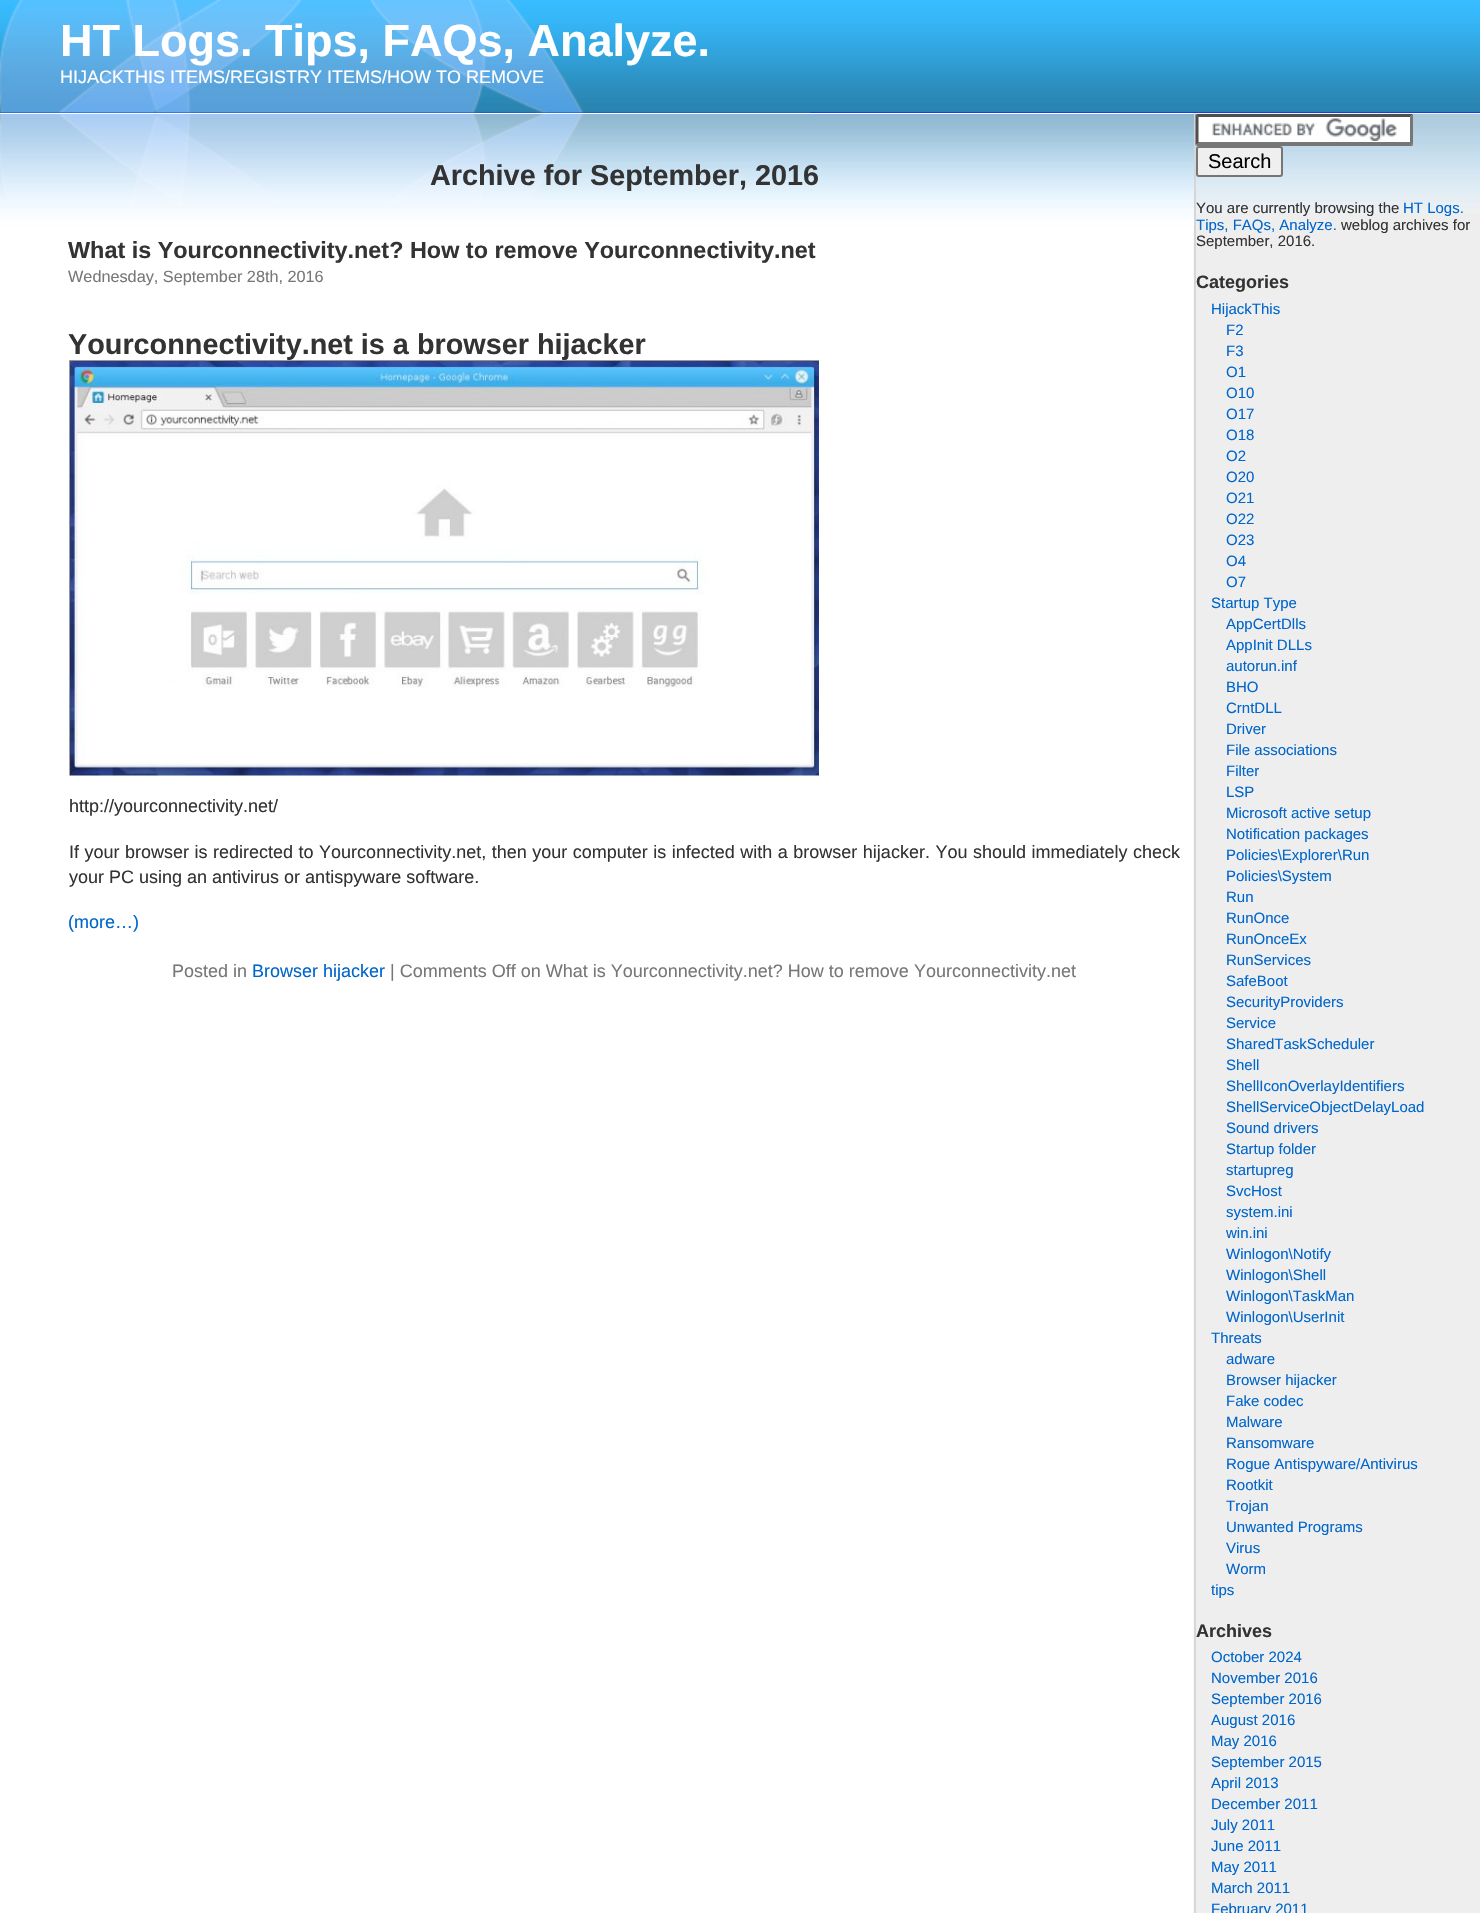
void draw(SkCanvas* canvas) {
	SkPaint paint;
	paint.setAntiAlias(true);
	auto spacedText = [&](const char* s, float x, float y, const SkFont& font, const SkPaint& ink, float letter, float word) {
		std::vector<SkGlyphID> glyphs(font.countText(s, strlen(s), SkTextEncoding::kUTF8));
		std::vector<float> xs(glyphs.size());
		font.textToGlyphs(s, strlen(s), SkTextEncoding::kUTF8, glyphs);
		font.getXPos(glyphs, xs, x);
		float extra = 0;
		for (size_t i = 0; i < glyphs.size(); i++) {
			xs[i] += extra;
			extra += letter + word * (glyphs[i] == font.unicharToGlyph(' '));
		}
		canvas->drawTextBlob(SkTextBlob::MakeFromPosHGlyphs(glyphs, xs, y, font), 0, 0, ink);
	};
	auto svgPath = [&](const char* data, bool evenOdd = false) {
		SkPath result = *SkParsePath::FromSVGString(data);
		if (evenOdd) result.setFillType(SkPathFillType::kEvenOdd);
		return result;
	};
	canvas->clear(0xffffffff);
	canvas->drawImageRect(SkImages::DeferredFromEncodedData(SkData::MakeFromFileName("img1.png")), SkRect::MakeXYWH(1193, 113, 287, 1800), SkSamplingOptions());
	paint.setColor(0xff0000ff);
	canvas->drawRect(SkRect::MakeXYWH(0, 112, 1480, 1), paint);
	canvas->drawImageRect(SkImages::DeferredFromEncodedData(SkData::MakeFromFileName("img2.png")), SkRect::MakeXYWH(0, 0, 1480, 113), SkSamplingOptions());
	canvas->drawImageRect(SkImages::DeferredFromEncodedData(SkData::MakeFromFileName("img3.png")), SkRect::MakeXYWH(0, 0, 810, 113), SkSamplingOptions());
	SkFont f1(fontMgr->matchFamilyStyle("Liberation Sans", SkFontStyle::Bold()), 45);
	f1.setSubpixel(true);
	paint.setColor(0xffffffff);
	canvas->drawString("HT Logs. Tips, FAQs, Analyze.", 60, 56, f1, paint);
	SkFont f2(fontMgr->matchFamilyStyle("Liberation Sans", SkFontStyle::Normal()), 18);
	f2.setSubpixel(true);
	canvas->drawString("HIJACKTHIS ITEMS/REGISTRY ITEMS/HOW TO REMOVE", 60, 83, f2, paint);
	canvas->drawImageRect(SkImages::DeferredFromEncodedData(SkData::MakeFromFileName("img4.png")), SkRect::MakeXYWH(0, 114, 1194, 113), SkSamplingOptions());
	canvas->drawImageRect(SkImages::DeferredFromEncodedData(SkData::MakeFromFileName("img5.png")), SkRect::MakeXYWH(0, 114, 583, 91), SkSamplingOptions());
	SkFont f3(fontMgr->matchFamilyStyle("Liberation Sans", SkFontStyle::Bold()), 28.8);
	f3.setSubpixel(true);
	paint.setColor(0xff333333);
	canvas->drawString("Archive for September, 2016", 430, 185, f3, paint);
	SkFont f4(fontMgr->matchFamilyStyle("Liberation Sans", SkFontStyle::Bold()), 23.4);
	f4.setSubpixel(true);
	canvas->drawString("What is Yourconnectivity.net? How to remove Yourconnectivity.net", 68, 258, f4, paint);
	SkFont f5(fontMgr->matchFamilyStyle("Liberation Sans", SkFontStyle::Normal()), 16.25);
	f5.setSubpixel(true);
	paint.setColor(0xff777777);
	canvas->drawString("Wednesday, September 28th, 2016", 68, 282, f5, paint);
	paint.setColor(0xff333333);
	canvas->drawString("Yourconnectivity.net is a browser hijacker", 68, 354, f3, paint);
	canvas->drawImageRect(SkImages::DeferredFromEncodedData(SkData::MakeFromFileName("img6.png")), SkRect::MakeXYWH(69, 360, 750, 416), SkSamplingOptions());
	canvas->drawString("http://yourconnectivity.net/", 69, 812, f2, paint);
	spacedText("If your browser is redirected to Yourconnectivity.net, then your computer is infected with a browser hijacker. You should immediately check", 69, 858, f2, paint, 0, 0.5);
	canvas->drawString("your PC using an antivirus or antispyware software.", 69, 883, f2, paint);
	paint.setColor(0xff0066cc);
	canvas->drawString("(more…)", 68, 928, f2, paint);
	paint.setColor(0xff777777);
	canvas->drawString("Posted in", 172, 977, f2, paint);
	paint.setColor(0xff0066cc);
	canvas->drawString("Browser hijacker", 252, 977, f2, paint);
	paint.setColor(0xff777777);
	canvas->drawString("| Comments Off on What is Yourconnectivity.net? How to remove Yourconnectivity.net", 390, 977, f2, paint);
	paint.setColor(0xffeeeeee);
	canvas->drawRect(SkRect::MakeXYWH(1196, 213, 284, 1700), paint);
	canvas->drawImageRect(SkImages::DeferredFromEncodedData(SkData::MakeFromFileName("img7.png")), SkRect::MakeXYWH(1196, 114, 284, 99), SkSamplingOptions());
	paint.setColor(0xffd6d6d6);
	canvas->drawRect(SkRect::MakeXYWH(1194, 114, 2, 1799), paint);
	paint.setColor(0xffffffff);
	canvas->drawRect(SkRect::MakeXYWH(1196, 114, 217, 32), paint);
	canvas->drawImageRect(SkImages::DeferredFromEncodedData(SkData::MakeFromFileName("img8.png")), SkRect::MakeXYWH(1212, 118, 185, 23), SkSamplingOptions());
	paint.setColor(0xff4f4f4f);
	canvas->drawPath(svgPath("M1196 114H1413L1410 117H1198Z"), paint);
	paint.setColor(0xff767676);
	canvas->drawPath(svgPath("M1413 114V145.5L1410 142.5V117Z"), paint);
	canvas->drawPath(svgPath("M1413 146H1196L1198 142H1410Z"), paint);
	paint.setColor(0xff4f4f4f);
	canvas->drawPath(svgPath("M1195.5 145.5V114L1198.5 117V142.5Z"), paint);
	paint.setColor(0xffefefef);
	canvas->drawRoundRect(SkRect::MakeXYWH(1197, 147, 85, 29), 2, 2, paint);
	paint.setStroke(true);
	paint.setStrokeWidth(2);
	paint.setColor(0xff767676);
	canvas->drawRoundRect(SkRect::MakeXYWH(1197, 147, 85, 29), 2, 2, paint);
	SkFont f6(fontMgr->matchFamilyStyle("Liberation Sans", SkFontStyle::Normal()), 20);
	f6.setSubpixel(true);
	paint.setStroke(false);
	paint.setColor(0xff000000);
	canvas->drawString("Search", 1208, 168, f6, paint);
	SkFont f7(fontMgr->matchFamilyStyle("Liberation Sans", SkFontStyle::Normal()), 15);
	f7.setSubpixel(true);
	paint.setColor(0xff333333);
	canvas->drawString("You are currently browsing the", 1196, 213, f7, paint);
	paint.setColor(0xff0066cc);
	canvas->drawString("HT Logs.", 1403, 213, f7, paint);
	canvas->drawString("Tips, FAQs, Analyze.", 1196, 230, f7, paint);
	paint.setColor(0xff333333);
	canvas->drawString("weblog archives for", 1341, 230, f7, paint);
	canvas->drawString("September, 2016.", 1196, 246, f7, paint);
	SkFont f8(fontMgr->matchFamilyStyle("Liberation Sans", SkFontStyle::Bold()), 18);
	f8.setSubpixel(true);
	canvas->drawString("Categories", 1196, 288, f8, paint);
	paint.setColor(0xff0066cc);
	canvas->drawString("HijackThis", 1211, 314, f7, paint);
	canvas->drawString("F2", 1226, 335, f7, paint);
	canvas->drawString("F3", 1226, 356, f7, paint);
	canvas->drawString("O1", 1226, 377, f7, paint);
	canvas->drawString("O10", 1226, 398, f7, paint);
	canvas->drawString("O17", 1226, 419, f7, paint);
	canvas->drawString("O18", 1226, 440, f7, paint);
	canvas->drawString("O2", 1226, 461, f7, paint);
	canvas->drawString("O20", 1226, 482, f7, paint);
	canvas->drawString("O21", 1226, 503, f7, paint);
	canvas->drawString("O22", 1226, 524, f7, paint);
	canvas->drawString("O23", 1226, 545, f7, paint);
	canvas->drawString("O4", 1226, 566, f7, paint);
	canvas->drawString("O7", 1226, 587, f7, paint);
	canvas->drawString("Startup Type", 1211, 608, f7, paint);
	canvas->drawString("AppCertDlls", 1226, 629, f7, paint);
	canvas->drawString("AppInit DLLs", 1226, 650, f7, paint);
	canvas->drawString("autorun.inf", 1226, 671, f7, paint);
	canvas->drawString("BHO", 1226, 692, f7, paint);
	canvas->drawString("CrntDLL", 1226, 713, f7, paint);
	canvas->drawString("Driver", 1226, 734, f7, paint);
	canvas->drawString("File associations", 1226, 755, f7, paint);
	canvas->drawString("Filter", 1226, 776, f7, paint);
	canvas->drawString("LSP", 1226, 797, f7, paint);
	canvas->drawString("Microsoft active setup", 1226, 818, f7, paint);
	canvas->drawString("Notification packages", 1226, 839, f7, paint);
	canvas->drawString("Policies\\Explorer\\Run", 1226, 860, f7, paint);
	canvas->drawString("Policies\\System", 1226, 881, f7, paint);
	canvas->drawString("Run", 1226, 902, f7, paint);
	canvas->drawString("RunOnce", 1226, 923, f7, paint);
	canvas->drawString("RunOnceEx", 1226, 944, f7, paint);
	canvas->drawString("RunServices", 1226, 965, f7, paint);
	canvas->drawString("SafeBoot", 1226, 986, f7, paint);
	canvas->drawString("SecurityProviders", 1226, 1007, f7, paint);
	canvas->drawString("Service", 1226, 1028, f7, paint);
	canvas->drawString("SharedTaskScheduler", 1226, 1049, f7, paint);
	canvas->drawString("Shell", 1226, 1070, f7, paint);
	canvas->drawString("ShellIconOverlayIdentifiers", 1226, 1091, f7, paint);
	canvas->drawString("ShellServiceObjectDelayLoad", 1226, 1112, f7, paint);
	canvas->drawString("Sound drivers", 1226, 1133, f7, paint);
	canvas->drawString("Startup folder", 1226, 1154, f7, paint);
	canvas->drawString("startupreg", 1226, 1175, f7, paint);
	canvas->drawString("SvcHost", 1226, 1196, f7, paint);
	canvas->drawString("system.ini", 1226, 1217, f7, paint);
	canvas->drawString("win.ini", 1226, 1238, f7, paint);
	canvas->drawString("Winlogon\\Notify", 1226, 1259, f7, paint);
	canvas->drawString("Winlogon\\Shell", 1226, 1280, f7, paint);
	canvas->drawString("Winlogon\\TaskMan", 1226, 1301, f7, paint);
	canvas->drawString("Winlogon\\UserInit", 1226, 1322, f7, paint);
	canvas->drawString("Threats", 1211, 1343, f7, paint);
	canvas->drawString("adware", 1226, 1364, f7, paint);
	canvas->drawString("Browser hijacker", 1226, 1385, f7, paint);
	canvas->drawString("Fake codec", 1226, 1406, f7, paint);
	canvas->drawString("Malware", 1226, 1427, f7, paint);
	canvas->drawString("Ransomware", 1226, 1448, f7, paint);
	canvas->drawString("Rogue Antispyware/Antivirus", 1226, 1469, f7, paint);
	canvas->drawString("Rootkit", 1226, 1490, f7, paint);
	canvas->drawString("Trojan", 1226, 1511, f7, paint);
	canvas->drawString("Unwanted Programs", 1226, 1532, f7, paint);
	canvas->drawString("Virus", 1226, 1553, f7, paint);
	canvas->drawString("Worm", 1226, 1574, f7, paint);
	canvas->drawString("tips", 1211, 1595, f7, paint);
	paint.setColor(0xff333333);
	canvas->drawString("Archives", 1196, 1637, f8, paint);
	paint.setColor(0xff0066cc);
	canvas->drawString("October 2024", 1211, 1662, f7, paint);
	canvas->drawString("November 2016", 1211, 1683, f7, paint);
	canvas->drawString("September 2016", 1211, 1704, f7, paint);
	canvas->drawString("August 2016", 1211, 1725, f7, paint);
	canvas->drawString("May 2016", 1211, 1746, f7, paint);
	canvas->drawString("September 2015", 1211, 1767, f7, paint);
	canvas->drawString("April 2013", 1211, 1788, f7, paint);
	canvas->drawString("December 2011", 1211, 1809, f7, paint);
	canvas->drawString("July 2011", 1211, 1830, f7, paint);
	canvas->drawString("June 2011", 1211, 1851, f7, paint);
	canvas->drawString("May 2011", 1211, 1872, f7, paint);
	canvas->drawString("March 2011", 1211, 1893, f7, paint);
	canvas->drawString("February 2011", 1211, 1914, f7, paint);
}
